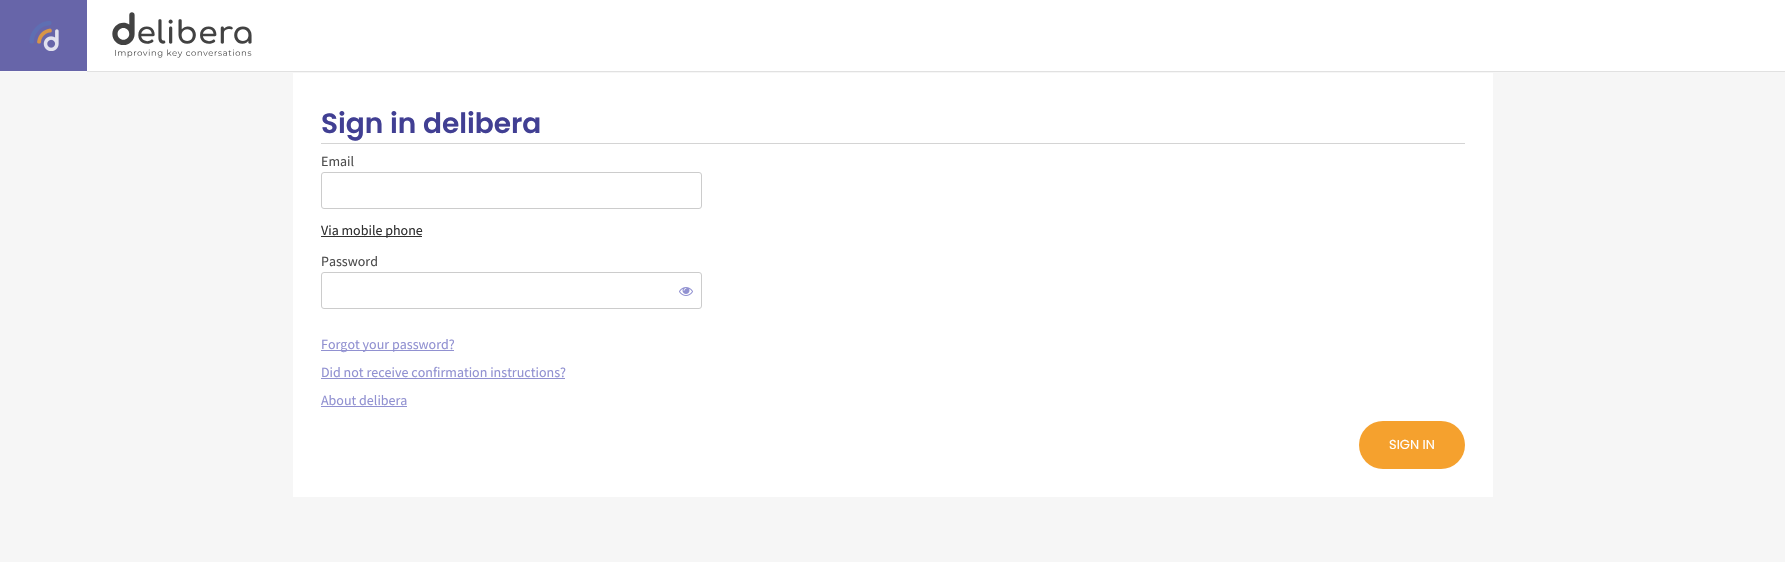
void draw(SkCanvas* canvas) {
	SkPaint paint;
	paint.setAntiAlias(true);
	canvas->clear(0xfff6f6f6);
	paint.setColor(0xffffffff);
	canvas->drawRect(SkRect::MakeXYWH(87, 0, 1698, 71), paint);
	paint.setColor(0xff6765a9);
	canvas->drawRect(SkRect::MakeXYWH(0, 0, 87, 71), paint);
	paint.setColor(0xffe1e1e1);
	canvas->drawRect(SkRect::MakeXYWH(87, 71, 1698, 1), paint);
	canvas->drawImageRect(SkImages::DeferredFromEncodedData(SkData::MakeFromFileName("img1.png")), SkRect::MakeXYWH(29, 21, 30, 30), SkSamplingOptions());
	paint.setColor(0xfff9f9f9);
	canvas->drawRect(SkRect::MakeXYWH(0, 71, 87, 1), paint);
	canvas->drawImageRect(SkImages::DeferredFromEncodedData(SkData::MakeFromFileName("img2.png")), SkRect::MakeXYWH(112, 12, 140, 46), SkSamplingOptions());
	paint.setColor(0xffffffff);
	canvas->drawRect(SkRect::MakeXYWH(293, 73, 1200, 424), paint);
	paint.setColor(0xffd4d4d4);
	canvas->drawRect(SkRect::MakeXYWH(321, 143, 1144, 1), paint);
	SkFont f1(fontMgr->matchFamilyStyle("Poppins", SkFontStyle(600, SkFontStyle::kNormal_Width, SkFontStyle::kUpright_Slant)), 28);
	f1.setSubpixel(true);
	paint.setColor(0xff413f93);
	canvas->drawString("Sign in delibera", 321, 133, f1, paint);
	SkFont f2(fontMgr->matchFamilyStyle("Source Sans Pro", SkFontStyle::Normal()), 14);
	f2.setSubpixel(true);
	paint.setColor(0xff4d4d4d);
	canvas->drawString("Email", 321, 166, f2, paint);
	paint.setStroke(true);
	paint.setStrokeWidth(1);
	paint.setColor(0xffcccccc);
	canvas->drawRoundRect(SkRect::MakeXYWH(321.5, 172.5, 380, 36), 2.5, 2.5, paint);
	paint.setStroke(false);
	paint.setColor(0xff313131);
	canvas->drawRect(SkRect::MakeXYWH(321, 236, 101, 1), paint);
	canvas->drawString("Via mobile phone", 321, 235, f2, paint);
	paint.setColor(0xff4d4d4d);
	canvas->drawString("Password", 321, 266, f2, paint);
	paint.setStroke(true);
	paint.setColor(0xffcccccc);
	canvas->drawRoundRect(SkRect::MakeXYWH(321.5, 272.5, 380, 36), 2.5, 2.5, paint);
	canvas->drawImageRect(SkImages::DeferredFromEncodedData(SkData::MakeFromFileName("img3.png")), SkRect::MakeXYWH(679, 287, 14, 9), SkSamplingOptions());
	paint.setStroke(false);
	paint.setColor(0xff9191d1);
	canvas->drawRect(SkRect::MakeXYWH(321, 350, 133, 1), paint);
	canvas->drawString("Forgot your password?", 321, 349, f2, paint);
	canvas->drawString("Did not receive confirmation instructions?", 321, 377, f2, paint);
	canvas->drawRect(SkRect::MakeXYWH(321, 378, 244, 1), paint);
	canvas->drawString("About delibera", 321, 405, f2, paint);
	canvas->drawRect(SkRect::MakeXYWH(321, 406, 86, 1), paint);
	paint.setColor(0xfff5a12e);
	canvas->drawRoundRect(SkRect::MakeXYWH(1359, 421, 106, 48), 24, 24, paint);
	SkFont f3(fontMgr->matchFamilyStyle("Poppins", SkFontStyle::Normal()), 13);
	f3.setSubpixel(true);
	paint.setColor(0xffffffff);
	canvas->drawString("SIGN IN", 1389, 449, f3, paint);
}
